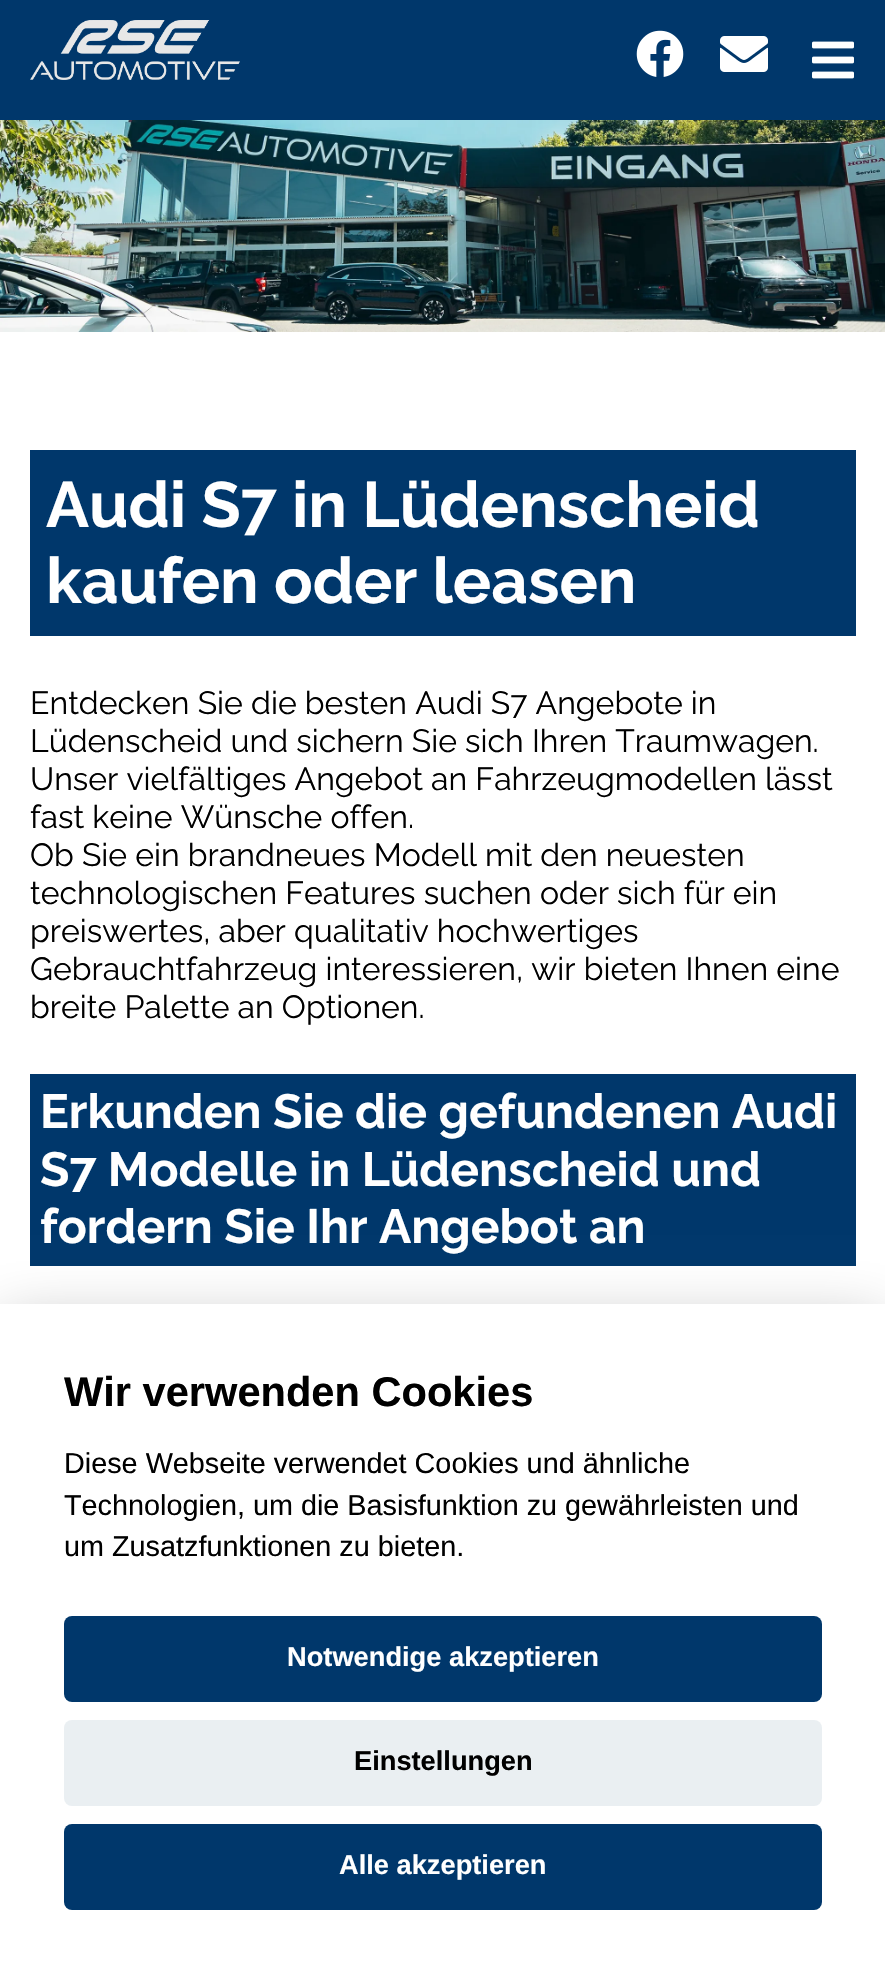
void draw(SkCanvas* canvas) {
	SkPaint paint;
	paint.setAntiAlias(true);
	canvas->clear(0xffffffff);
	paint.setColor(0xff00376b);
	canvas->drawRect(SkRect::MakeXYWH(0, 0, 885, 120), paint);
	canvas->drawImageRect(SkImages::DeferredFromEncodedData(SkData::MakeFromFileName("img1.png")), SkRect::MakeXYWH(30, 20, 210, 60), SkSamplingOptions());
	canvas->drawImageRect(SkImages::DeferredFromEncodedData(SkData::MakeFromFileName("img2.png")), SkRect::MakeXYWH(636, 30, 48, 47), SkSamplingOptions());
	canvas->drawImageRect(SkImages::DeferredFromEncodedData(SkData::MakeFromFileName("img3.png")), SkRect::MakeXYWH(720, 36, 48, 36), SkSamplingOptions());
	canvas->drawImageRect(SkImages::DeferredFromEncodedData(SkData::MakeFromFileName("img4.png")), SkRect::MakeXYWH(812, 41, 42, 38), SkSamplingOptions());
	canvas->drawImageRect(SkImages::DeferredFromEncodedData(SkData::MakeFromFileName("img5.png")), SkRect::MakeXYWH(0, 120, 885, 212), SkSamplingOptions());
	canvas->drawRect(SkRect::MakeXYWH(30, 450, 826, 186), paint);
	SkFont f1(fontMgr->matchFamilyStyle("Raleway", SkFontStyle::Bold()), 64);
	f1.setSubpixel(true);
	paint.setColor(0xffffffff);
	canvas->drawString("Audi S7 in Lüdenscheid", 46, 527, f1, paint);
	canvas->drawString("kaufen oder leasen", 46, 603, f1, paint);
	SkFont f2(fontMgr->matchFamilyStyle("Raleway", SkFontStyle::Normal()), 32);
	f2.setSubpixel(true);
	paint.setColor(0xff000000);
	canvas->drawString("Entdecken Sie die besten Audi S7 Angebote in", 30, 714, f2, paint);
	canvas->drawString("Lüdenscheid und sichern Sie sich Ihren Traumwagen.", 30, 752, f2, paint);
	canvas->drawString("Unser vielfältiges Angebot an Fahrzeugmodellen lässt", 30, 790, f2, paint);
	canvas->drawString("fast keine Wünsche offen.", 30, 828, f2, paint);
	canvas->drawString("Ob Sie ein brandneues Modell mit den neuesten", 30, 866, f2, paint);
	canvas->drawString("technologischen Features suchen oder sich für ein", 30, 904, f2, paint);
	canvas->drawString("preiswertes, aber qualitativ hochwertiges", 30, 942, f2, paint);
	canvas->drawString("Gebrauchtfahrzeug interessieren, wir bieten Ihnen eine", 30, 980, f2, paint);
	canvas->drawString("breite Palette an Optionen.", 30, 1018, f2, paint);
	paint.setColor(0xff00376b);
	canvas->drawRect(SkRect::MakeXYWH(30, 1074, 826, 192), paint);
	SkFont f3(fontMgr->matchFamilyStyle("Raleway", SkFontStyle::Bold()), 48);
	f3.setSubpixel(true);
	paint.setColor(0xffffffff);
	canvas->drawString("Erkunden Sie die gefundenen Audi", 40, 1128, f3, paint);
	canvas->drawString("S7 Modelle in Lüdenscheid und", 40, 1186, f3, paint);
	canvas->drawString("fordern Sie Ihr Angebot an", 40, 1243, f3, paint);
	paint.setColor(0x47020203);
	paint.setMaskFilter(SkMaskFilter::MakeBlur(kNormal_SkBlurStyle, 30));
	canvas->drawRect(SkRect::MakeXYWH(0, 1324, 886, 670), paint);
	paint.setMaskFilter(nullptr);
	paint.setColor(0xffffffff);
	canvas->drawRect(SkRect::MakeXYWH(0, 1304, 885, 669), paint);
	SkFont f4(fontMgr->matchFamilyStyle("Liberation Sans", SkFontStyle::Bold()), 41.6);
	f4.setSubpixel(true);
	paint.setColor(0xff000000);
	canvas->drawString("Wir verwenden Cookies", 64, 1406, f4, paint);
	SkFont f5(fontMgr->matchFamilyStyle("Liberation Sans", SkFontStyle::Normal()), 28.8);
	f5.setSubpixel(true);
	canvas->drawString("Diese Webseite verwendet Cookies und ähnliche", 64, 1473, f5, paint);
	canvas->drawString("Technologien, um die Basisfunktion zu gewährleisten und", 64, 1515, f5, paint);
	canvas->drawString("um Zusatzfunktionen zu bieten.", 64, 1556, f5, paint);
	paint.setColor(0xff00376b);
	canvas->drawRoundRect(SkRect::MakeXYWH(64, 1616, 758, 86), 8, 8, paint);
	SkFont f6(fontMgr->matchFamilyStyle("Liberation Sans", SkFontStyle::Bold()), 27.25);
	f6.setSubpixel(true);
	paint.setColor(0xffffffff);
	canvas->drawString("Notwendige akzeptieren", 287, 1666, f6, paint);
	paint.setColor(0xffeaeff2);
	canvas->drawRoundRect(SkRect::MakeXYWH(64, 1720, 758, 86), 8, 8, paint);
	paint.setColor(0xff000000);
	canvas->drawString("Einstellungen", 354, 1770, f6, paint);
	paint.setColor(0xff00376b);
	canvas->drawRoundRect(SkRect::MakeXYWH(64, 1824, 758, 86), 8, 8, paint);
	paint.setColor(0xffffffff);
	canvas->drawString("Alle akzeptieren", 339, 1874, f6, paint);
}
